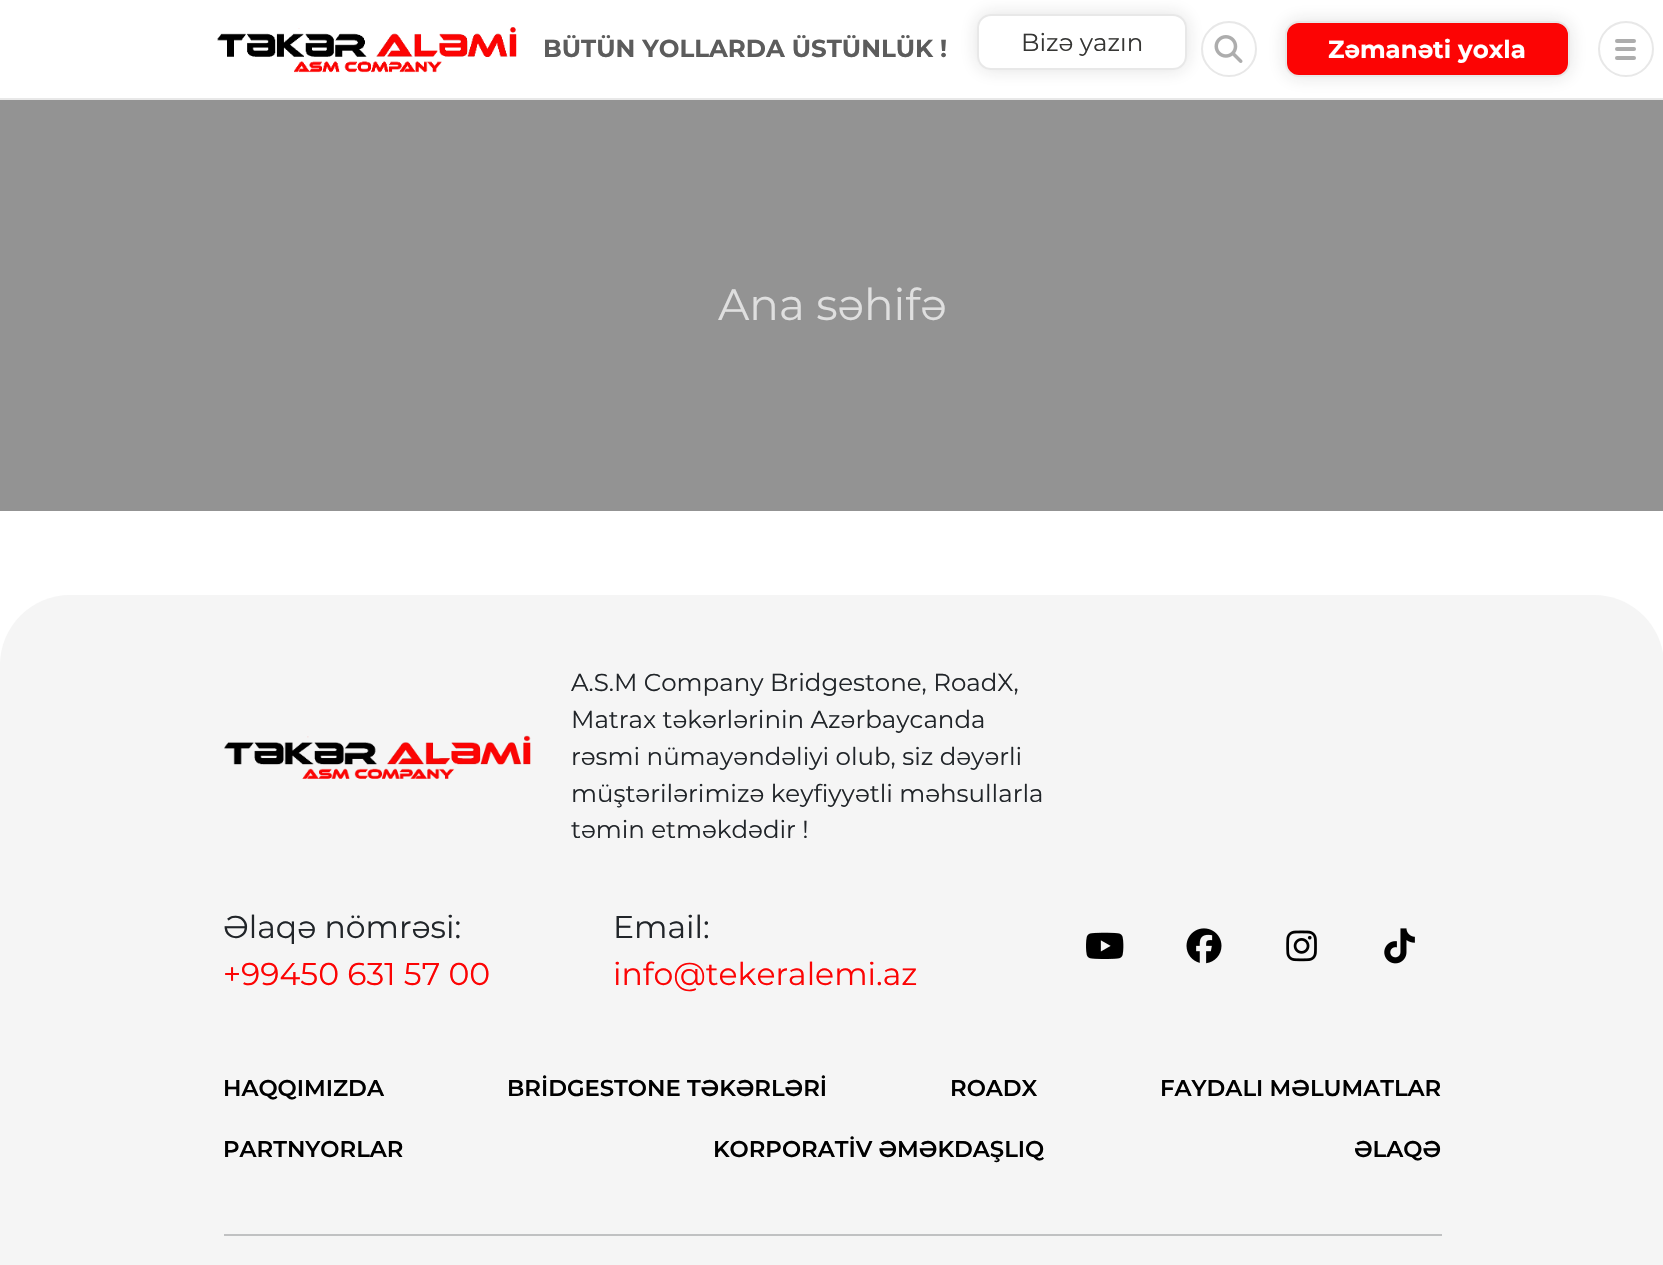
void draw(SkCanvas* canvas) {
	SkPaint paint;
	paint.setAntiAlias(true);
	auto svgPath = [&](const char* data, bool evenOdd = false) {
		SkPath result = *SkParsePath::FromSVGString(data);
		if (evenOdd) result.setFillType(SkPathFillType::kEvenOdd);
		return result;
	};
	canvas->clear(0xffffffff);
	paint.setColor(0xffe8e8e8);
	canvas->drawRect(SkRect::MakeXYWH(0, 98, 1663, 2), paint);
	canvas->drawImageRect(SkImages::DeferredFromEncodedData(SkData::MakeFromFileName("img1.png")), SkRect::MakeXYWH(217, 27, 300, 46), SkSamplingOptions());
	SkFont f1(fontMgr->matchFamilyStyle("Montserrat", SkFontStyle::Bold()), 24.5);
	f1.setSubpixel(true);
	paint.setColor(0xff5c5c5c);
	canvas->drawString("BÜTÜN YOLLARDA ÜSTÜNLÜK !", 543, 57, f1, paint);
	canvas->save();
	canvas->clipPath(svgPath("M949 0H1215V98H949ZM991 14H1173C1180.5 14 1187 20.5 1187 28V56C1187 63.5 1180.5 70 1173 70H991C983.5 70 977 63.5 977 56V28C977 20.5 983.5 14 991 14Z", true), true);
	paint.setColor(0x21222222);
	paint.setMaskFilter(SkMaskFilter::MakeBlur(kNormal_SkBlurStyle, 9));
	canvas->drawRoundRect(SkRect::MakeXYWH(977, 14, 210, 56), 14, 14, paint);
	paint.setMaskFilter(nullptr);
	canvas->restore();
	paint.setStroke(true);
	paint.setStrokeWidth(2);
	paint.setColor(0xffe8e8e8);
	canvas->drawRoundRect(SkRect::MakeXYWH(978, 15, 208, 54), 13, 13, paint);
	SkFont f2(fontMgr->matchFamilyStyle("Montserrat", SkFontStyle::Normal()), 24.5);
	f2.setSubpixel(true);
	paint.setStroke(false);
	paint.setColor(0xff363634);
	canvas->drawString("Bizə yazın", 1021, 51, f2, paint);
	paint.setStroke(true);
	paint.setColor(0xffe8e8e8);
	canvas->drawCircle(1229, 49, 27, paint);
	canvas->drawImageRect(SkImages::DeferredFromEncodedData(SkData::MakeFromFileName("img2.png")), SkRect::MakeXYWH(1214, 35, 29, 28), SkSamplingOptions());
	paint.setStroke(false);
	paint.setColor(0xff939393);
	canvas->drawRect(SkRect::MakeXYWH(0, 100, 1663, 411), paint);
	paint.setColor(0x21222222);
	paint.setMaskFilter(SkMaskFilter::MakeBlur(kNormal_SkBlurStyle, 9));
	canvas->drawRoundRect(SkRect::MakeXYWH(1285, 21, 285, 56), 14, 14, paint);
	paint.setMaskFilter(nullptr);
	paint.setColor(0xfffc0404);
	canvas->drawRoundRect(SkRect::MakeXYWH(1286, 22, 283, 54), 13, 13, paint);
	paint.setStroke(true);
	paint.setColor(0xffe8e8e8);
	canvas->drawRoundRect(SkRect::MakeXYWH(1286, 22, 283, 54), 13, 13, paint);
	paint.setStroke(false);
	paint.setColor(0xffffffff);
	canvas->drawString("Zəmanəti yoxla", 1328, 58, f1, paint);
	paint.setStroke(true);
	paint.setColor(0xffe8e8e8);
	canvas->drawCircle(1626, 49, 27, paint);
	paint.setStroke(false);
	paint.setColor(0xffadadad);
	canvas->drawRoundRect(SkRect::MakeXYWH(1615, 39, 21, 4), 2, 2, paint);
	canvas->drawRoundRect(SkRect::MakeXYWH(1615, 47, 21, 4), 2, 2, paint);
	canvas->drawRoundRect(SkRect::MakeXYWH(1615, 56, 21, 4), 2, 2, paint);
	SkFont f3(fontMgr->matchFamilyStyle("Montserrat", SkFontStyle::Normal()), 43.75);
	f3.setSubpixel(true);
	paint.setColor(0xffdfdfdf);
	canvas->drawString("Ana səhifə", 718, 320, f3, paint);
	paint.setColor(0xfff5f5f5);
	canvas->drawPath(svgPath("M70 595H1594C1632.5 595 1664 626.5 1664 665V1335H0V665C0 626.5 31.5 595 70 595Z"), paint);
	canvas->drawImageRect(SkImages::DeferredFromEncodedData(SkData::MakeFromFileName("img3.png")), SkRect::MakeXYWH(224, 735, 307, 44), SkSamplingOptions());
	paint.setColor(0xff212529);
	canvas->drawString("A.S.M Company Bridgestone, RoadX,", 571, 691, f2, paint);
	canvas->drawString("Matrax təkərlərinin Azərbaycanda", 571, 728, f2, paint);
	canvas->drawString("rəsmi nümayəndəliyi olub, siz dəyərli", 571, 765, f2, paint);
	canvas->drawString("müştərilərimizə keyfiyyətli məhsullarla", 571, 802, f2, paint);
	canvas->drawString("təmin etməkdədir !", 571, 838, f2, paint);
	SkFont f4(fontMgr->matchFamilyStyle("Montserrat", SkFontStyle::Normal()), 31.5);
	f4.setSubpixel(true);
	canvas->drawString("Əlaqə nömrəsi:", 223, 938, f4, paint);
	paint.setColor(0xfffc0404);
	canvas->drawString("+99450 631 57 00", 223, 985, f4, paint);
	paint.setColor(0xff212529);
	canvas->drawString("Email:", 613, 938, f4, paint);
	paint.setColor(0xfffc0404);
	canvas->drawString("info@tekeralemi.az", 613, 985, f4, paint);
	canvas->drawImageRect(SkImages::DeferredFromEncodedData(SkData::MakeFromFileName("img4.png")), SkRect::MakeXYWH(1086, 932, 38, 27), SkSamplingOptions());
	canvas->drawImageRect(SkImages::DeferredFromEncodedData(SkData::MakeFromFileName("img5.png")), SkRect::MakeXYWH(1186, 928, 36, 36), SkSamplingOptions());
	canvas->drawImageRect(SkImages::DeferredFromEncodedData(SkData::MakeFromFileName("img6.png")), SkRect::MakeXYWH(1286, 930, 31, 32), SkSamplingOptions());
	canvas->drawImageRect(SkImages::DeferredFromEncodedData(SkData::MakeFromFileName("img7.png")), SkRect::MakeXYWH(1384, 928, 31, 36), SkSamplingOptions());
	SkFont f5(fontMgr->matchFamilyStyle("Montserrat", SkFontStyle(600, SkFontStyle::kNormal_Width, SkFontStyle::kUpright_Slant)), 22.75);
	f5.setSubpixel(true);
	paint.setColor(0xff000000);
	canvas->drawString("HAQQIMIZDA", 223, 1096, f5, paint);
	canvas->drawString("BRİDGESTONE TƏKƏRLƏRİ", 507, 1096, f5, paint);
	canvas->drawString("ROADX", 950, 1096, f5, paint);
	canvas->drawString("FAYDALI MƏLUMATLAR", 1160, 1096, f5, paint);
	canvas->drawString("PARTNYORLAR", 223, 1157, f5, paint);
	canvas->drawString("KORPORATİV ƏMƏKDAŞLIQ", 713, 1157, f5, paint);
	canvas->drawString("ƏLAQƏ", 1354, 1157, f5, paint);
	paint.setColor(0xffc0c1c2);
	canvas->drawRect(SkRect::MakeXYWH(224, 1234, 1218, 2), paint);
}
